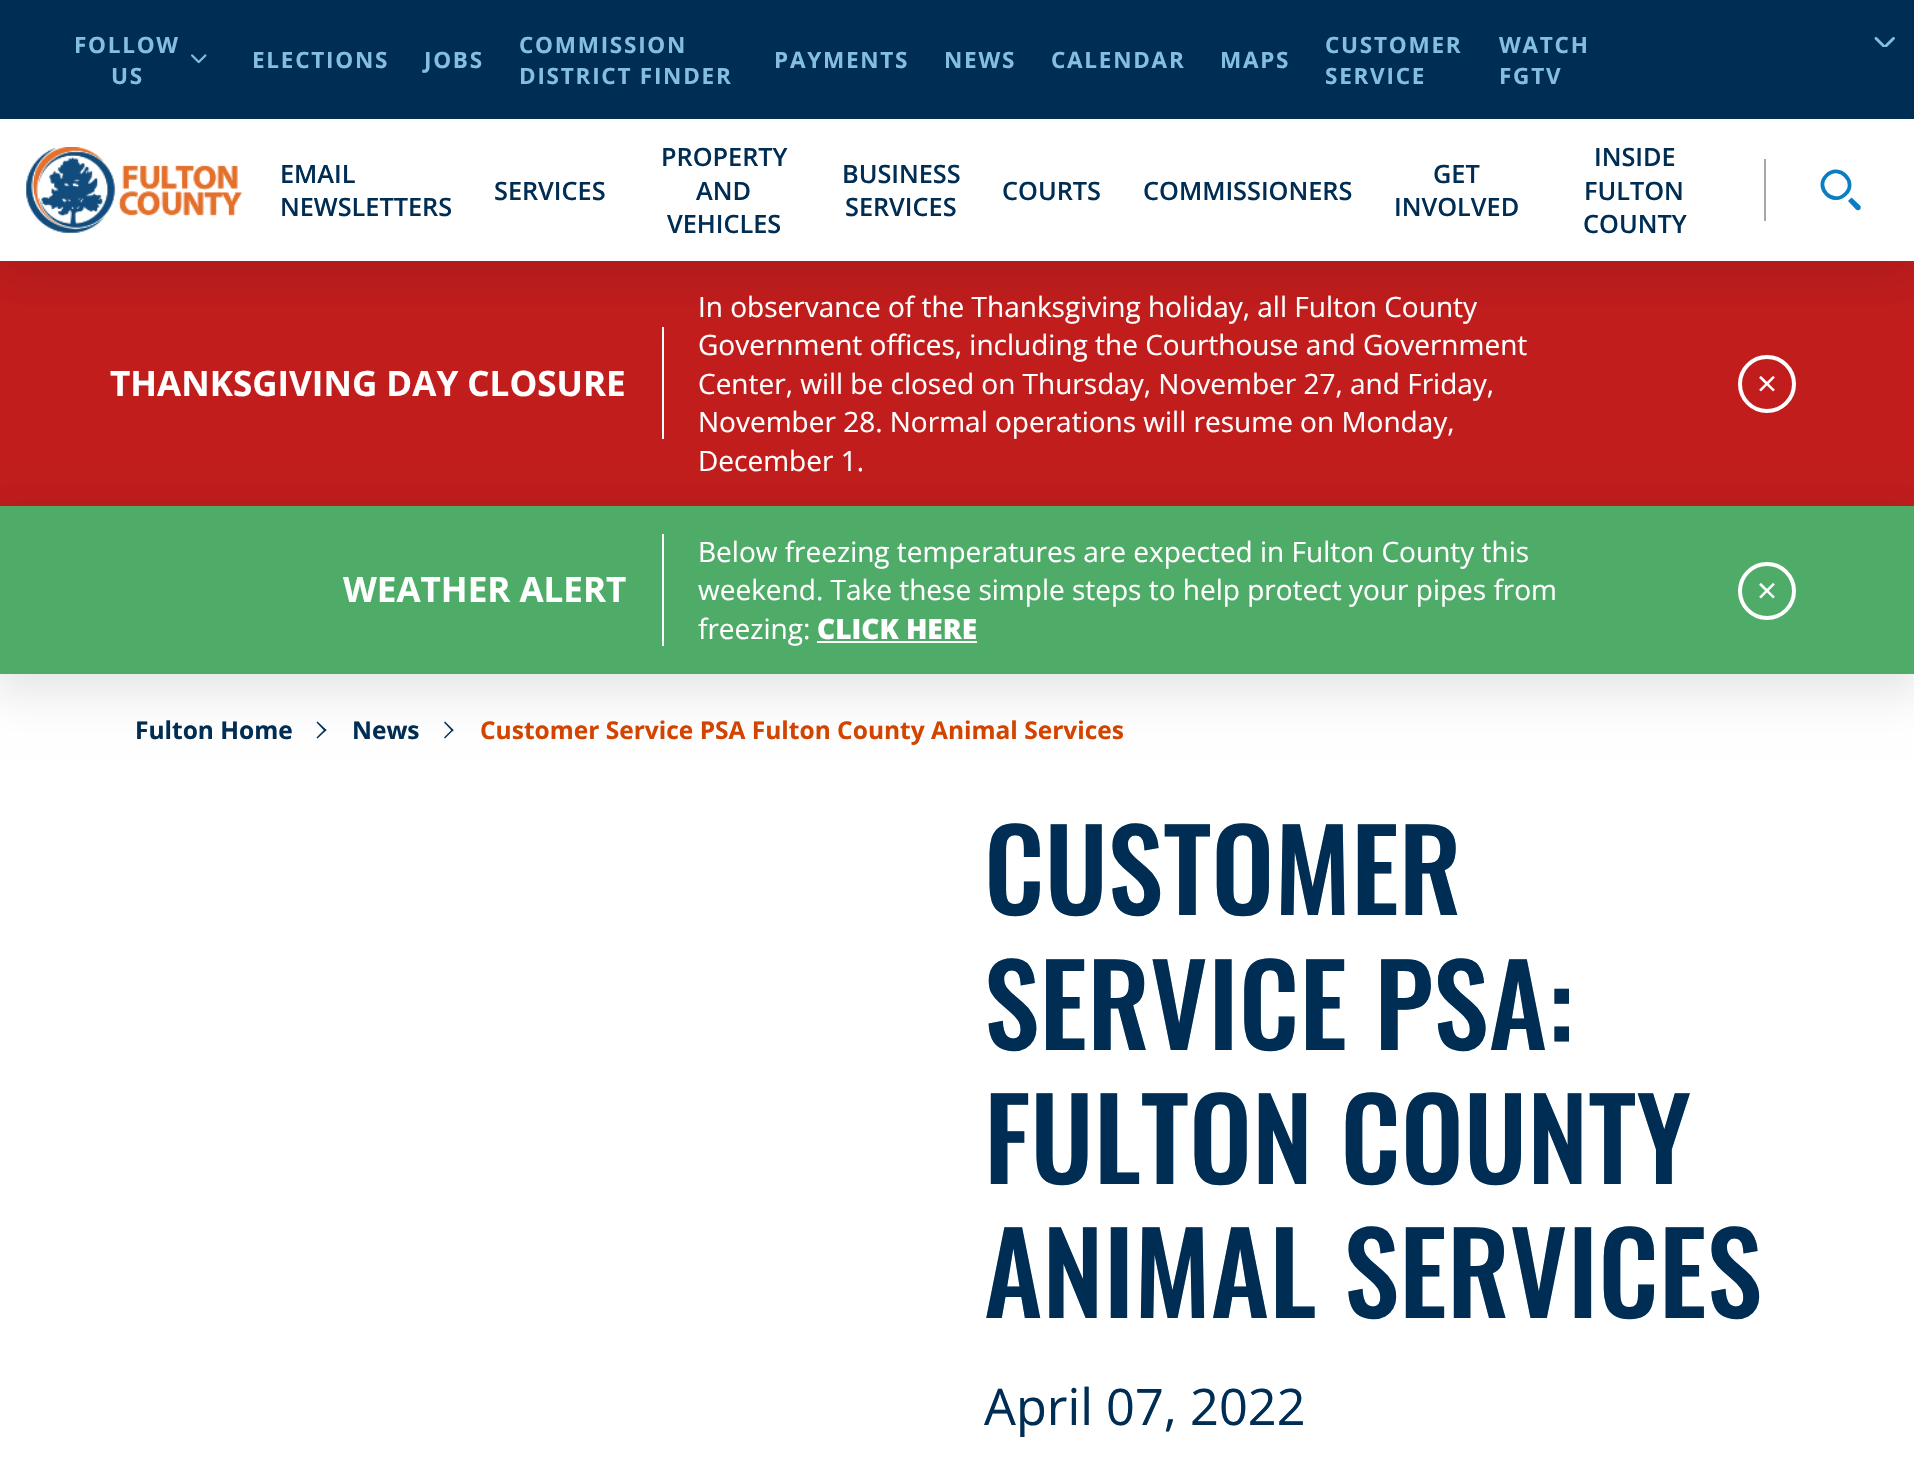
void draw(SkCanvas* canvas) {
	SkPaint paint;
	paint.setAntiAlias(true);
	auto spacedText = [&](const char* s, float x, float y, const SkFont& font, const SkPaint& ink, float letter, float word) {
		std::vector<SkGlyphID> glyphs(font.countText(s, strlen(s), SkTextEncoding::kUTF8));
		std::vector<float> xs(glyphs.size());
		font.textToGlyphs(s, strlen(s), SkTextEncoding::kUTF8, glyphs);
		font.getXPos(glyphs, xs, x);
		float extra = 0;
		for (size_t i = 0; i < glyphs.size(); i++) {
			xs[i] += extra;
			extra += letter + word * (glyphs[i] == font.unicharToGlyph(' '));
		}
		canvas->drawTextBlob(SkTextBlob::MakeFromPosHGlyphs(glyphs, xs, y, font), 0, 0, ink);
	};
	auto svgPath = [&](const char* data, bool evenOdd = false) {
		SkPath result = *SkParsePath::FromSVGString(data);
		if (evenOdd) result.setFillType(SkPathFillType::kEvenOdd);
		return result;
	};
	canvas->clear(0xffffffff);
	paint.setColor(0xffc21d1d);
	canvas->drawRect(SkRect::MakeXYWH(0, 261, 1914, 245), paint);
	paint.setColor(0xffffffff);
	canvas->drawRect(SkRect::MakeXYWH(662, 327, 2, 112), paint);
	paint.setColor(0x1a000000);
	paint.setMaskFilter(SkMaskFilter::MakeBlur(kNormal_SkBlurStyle, 22));
	canvas->drawRect(SkRect::MakeXYWH(-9, 121, 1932, 159), paint);
	paint.setMaskFilter(nullptr);
	paint.setColor(0xff002d53);
	canvas->drawRect(SkRect::MakeXYWH(0, 0, 1914, 119), paint);
	SkFont f1(fontMgr->matchFamilyStyle("Open Sans", SkFontStyle::Bold()), 22.5);
	f1.setSubpixel(true);
	paint.setColor(0xff84bee0);
	spacedText("FOLLOW", 74, 53, f1, paint, 1.75, 0);
	canvas->drawImageRect(SkImages::DeferredFromEncodedData(SkData::MakeFromFileName("img1.png")), SkRect::MakeXYWH(191, 54, 16, 10), SkSamplingOptions());
	spacedText("US", 111, 84, f1, paint, 1.75, 0);
	spacedText("COMMISSION", 519, 53, f1, paint, 1.75, 0);
	spacedText("DISTRICT FINDER", 519, 84, f1, paint, 1.75, 0);
	spacedText("CUSTOMER", 1325, 53, f1, paint, 1.75, 0);
	spacedText("SERVICE", 1325, 84, f1, paint, 1.75, 0);
	spacedText("WATCH", 1499, 53, f1, paint, 1.75, 0);
	spacedText("FGTV", 1499, 84, f1, paint, 1.75, 0);
	canvas->drawImageRect(SkImages::DeferredFromEncodedData(SkData::MakeFromFileName("img2.png")), SkRect::MakeXYWH(1874, 37, 21, 10), SkSamplingOptions());
	spacedText("ELECTIONS", 252, 68, f1, paint, 1.75, 0);
	spacedText("JOBS", 424, 68, f1, paint, 1.75, 0);
	spacedText("PAYMENTS", 774, 68, f1, paint, 1.75, 0);
	spacedText("NEWS", 944, 68, f1, paint, 1.75, 0);
	spacedText("CALENDAR", 1051, 68, f1, paint, 1.75, 0);
	spacedText("MAPS", 1220, 68, f1, paint, 1.75, 0);
	paint.setColor(0xffffffff);
	canvas->drawRect(SkRect::MakeXYWH(0, 119, 1914, 142), paint);
	canvas->drawImageRect(SkImages::DeferredFromEncodedData(SkData::MakeFromFileName("img3.png")), SkRect::MakeXYWH(26, 147, 216, 86), SkSamplingOptions());
	SkFont f2(fontMgr->matchFamilyStyle("Open Sans", SkFontStyle(600, SkFontStyle::kNormal_Width, SkFontStyle::kUpright_Slant)), 25.25);
	f2.setSubpixel(true);
	paint.setColor(0xff002d53);
	canvas->drawString("EMAIL", 280, 183, f2, paint);
	canvas->drawString("NEWSLETTERS", 280, 216, f2, paint);
	canvas->drawString("SERVICES", 494, 200, f2, paint);
	canvas->drawString("PROPERTY", 661, 166, f2, paint);
	canvas->drawString("AND", 696, 200, f2, paint);
	canvas->drawString("VEHICLES", 667, 233, f2, paint);
	canvas->drawString("BUSINESS", 842, 183, f2, paint);
	canvas->drawString("SERVICES", 845, 216, f2, paint);
	canvas->drawString("COURTS", 1002, 200, f2, paint);
	canvas->drawString("COMMISSIONERS", 1143, 200, f2, paint);
	canvas->drawString("GET", 1433, 183, f2, paint);
	canvas->drawString("INVOLVED", 1394, 216, f2, paint);
	canvas->drawString("INSIDE", 1594, 166, f2, paint);
	canvas->drawString("FULTON", 1584, 200, f2, paint);
	canvas->drawString("COUNTY", 1583, 233, f2, paint);
	paint.setColor(0xffa7a7a7);
	canvas->drawRect(SkRect::MakeXYWH(1764, 159, 2, 62), paint);
	paint.setColor(0xff097ec2);
	canvas->drawPath(svgPath("M1848 201L1851.5 197.5L1860 205.5C1861 206.5 1861 208.5 1860 209.5C1859 210.5 1857 210.5 1856 209.5Z"), paint);
	paint.setStroke(true);
	paint.setStrokeWidth(3.8);
	canvas->drawPath(svgPath("M1826.5 175.5C1839 163 1858 182 1845.5 194C1833 206.5 1814 188 1826.5 175.5Z"), paint);
	SkFont f3(fontMgr->matchFamilyStyle("Open Sans", SkFontStyle::Bold()), 35);
	f3.setSubpixel(true);
	paint.setStroke(false);
	paint.setColor(0xffffffff);
	canvas->drawString("THANKSGIVING DAY CLOSURE", 110, 396, f3, paint);
	SkFont f4(fontMgr->matchFamilyStyle("Open Sans", SkFontStyle::Normal()), 28);
	f4.setSubpixel(true);
	canvas->drawString("In observance of the Thanksgiving holiday, all Fulton County", 698, 317, f4, paint);
	canvas->drawString("Government offices, including the Courthouse and Government", 698, 355, f4, paint);
	canvas->drawString("Center, will be closed on Thursday, November 27, and Friday,", 698, 394, f4, paint);
	canvas->drawString("November 28. Normal operations will resume on Monday,", 698, 432, f4, paint);
	paint.setColor(0xff002d53);
	canvas->drawPath(svgPath("M317.5 721.5L326.5 730L325 731.5L316.5 722.5Z"), paint);
	canvas->drawPath(svgPath("M325 729L326.5 730L317.5 738.5L316.5 737.5Z"), paint);
	canvas->drawPath(svgPath("M445 721.5L453.5 730L452.5 731.5L444 722.5Z"), paint);
	canvas->drawPath(svgPath("M452.5 729L453.5 730L445 738.5L444 737.5Z"), paint);
	paint.setColor(0x1a000000);
	paint.setMaskFilter(SkMaskFilter::MakeBlur(kNormal_SkBlurStyle, 22));
	canvas->drawRect(SkRect::MakeXYWH(-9, 508, 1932, 185), paint);
	paint.setMaskFilter(nullptr);
	paint.setColor(0xffffffff);
	canvas->drawString("December 1.", 698, 471, f4, paint);
	paint.setStroke(true);
	paint.setStrokeWidth(4);
	canvas->drawCircle(1767, 384, 27, paint);
	SkFont f5(fontMgr->matchFamilyStyle("Open Sans", SkFontStyle::Normal()), 35);
	f5.setSubpixel(true);
	paint.setStroke(false);
	canvas->drawString("×", 1757, 396, f5, paint);
	paint.setColor(0xff4eab68);
	canvas->drawRect(SkRect::MakeXYWH(0, 506, 1914, 168), paint);
	paint.setColor(0xffffffff);
	canvas->drawRect(SkRect::MakeXYWH(662, 534, 2, 112), paint);
	canvas->drawString("WEATHER ALERT", 343, 602, f3, paint);
	canvas->drawString("Below freezing temperatures are expected in Fulton County this", 698, 562, f4, paint);
	canvas->drawString("weekend. Take these simple steps to help protect your pipes from", 698, 600, f4, paint);
	canvas->drawString("freezing:", 698, 639, f4, paint);
	SkFont f6(fontMgr->matchFamilyStyle("Open Sans", SkFontStyle(800, SkFontStyle::kNormal_Width, SkFontStyle::kUpright_Slant)), 28);
	f6.setSubpixel(true);
	canvas->drawString("CLICK HERE", 817, 639, f6, paint);
	canvas->drawRect(SkRect::MakeXYWH(817, 641, 160, 2), paint);
	paint.setStroke(true);
	canvas->drawCircle(1767, 591, 27, paint);
	paint.setStroke(false);
	canvas->drawString("×", 1757, 603, f5, paint);
	SkFont f7(fontMgr->matchFamilyStyle("Open Sans", SkFontStyle::Bold()), 24.5);
	f7.setSubpixel(true);
	paint.setColor(0xff002d53);
	canvas->drawString("Fulton Home", 135, 739, f7, paint);
	canvas->drawString("News", 352, 739, f7, paint);
	paint.setColor(0xffd34400);
	canvas->drawString("Customer Service PSA Fulton County Animal Services", 480, 739, f7, paint);
	SkFont f8(fontMgr->matchFamilyStyle("Oswald", SkFontStyle(500, SkFontStyle::kNormal_Width, SkFontStyle::kUpright_Slant)), 112);
	f8.setSubpixel(true);
	paint.setColor(0xff002d53);
	canvas->drawString("CUSTOMER", 984, 915, f8, paint);
	canvas->drawString("SERVICE PSA:", 984, 1050, f8, paint);
	canvas->drawString("FULTON COUNTY", 984, 1184, f8, paint);
	canvas->drawString("ANIMAL SERVICES", 984, 1318, f8, paint);
	SkFont f9(fontMgr->matchFamilyStyle("Open Sans", SkFontStyle::Normal()), 50.5);
	f9.setSubpixel(true);
	canvas->drawString("April 07, 2022", 984, 1425, f9, paint);
}
